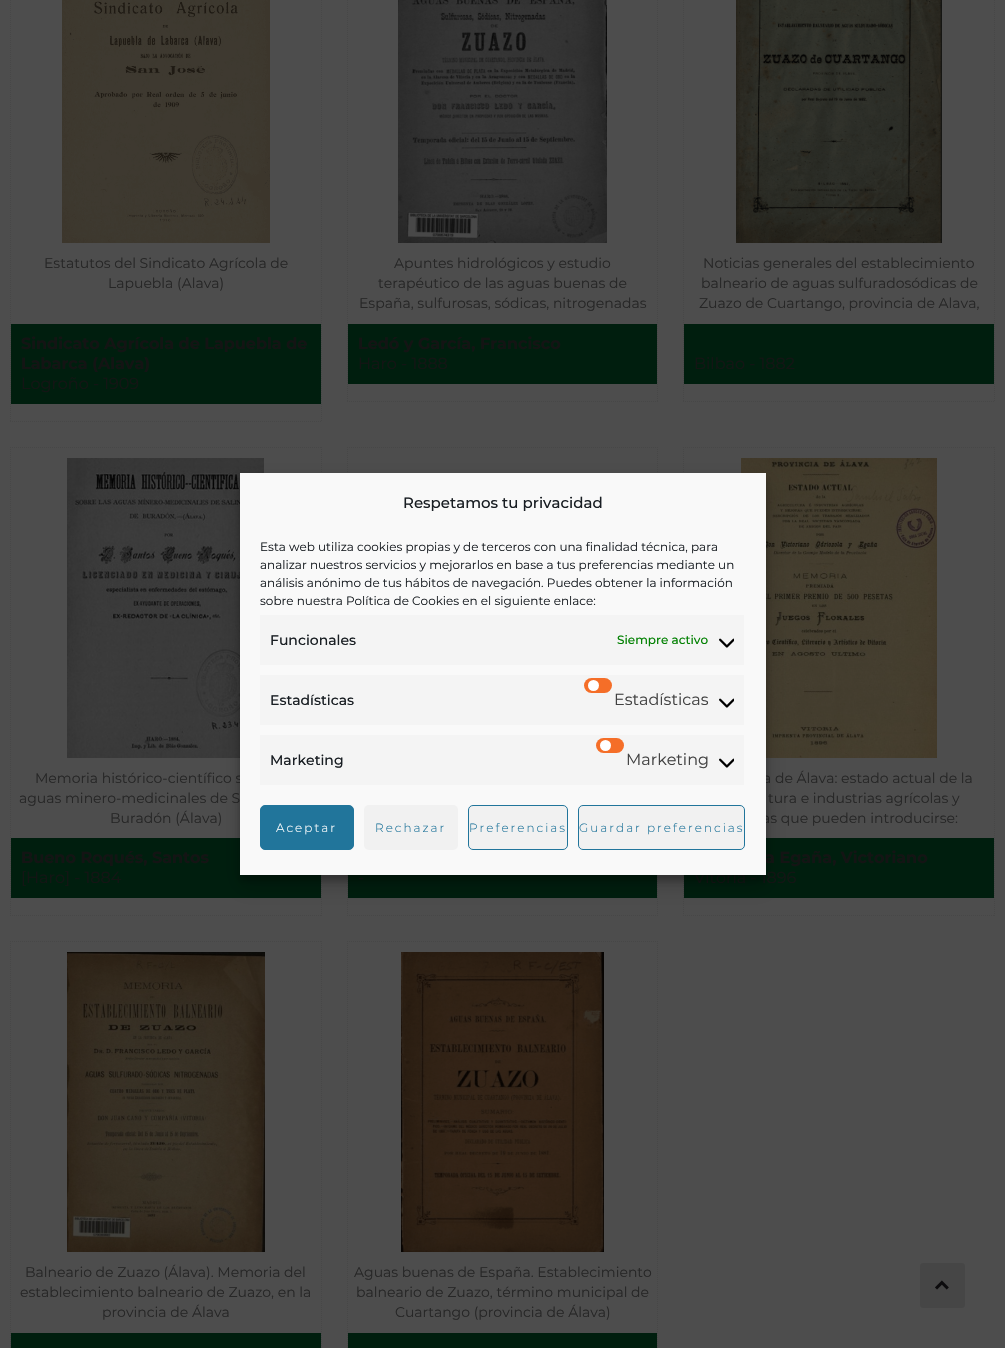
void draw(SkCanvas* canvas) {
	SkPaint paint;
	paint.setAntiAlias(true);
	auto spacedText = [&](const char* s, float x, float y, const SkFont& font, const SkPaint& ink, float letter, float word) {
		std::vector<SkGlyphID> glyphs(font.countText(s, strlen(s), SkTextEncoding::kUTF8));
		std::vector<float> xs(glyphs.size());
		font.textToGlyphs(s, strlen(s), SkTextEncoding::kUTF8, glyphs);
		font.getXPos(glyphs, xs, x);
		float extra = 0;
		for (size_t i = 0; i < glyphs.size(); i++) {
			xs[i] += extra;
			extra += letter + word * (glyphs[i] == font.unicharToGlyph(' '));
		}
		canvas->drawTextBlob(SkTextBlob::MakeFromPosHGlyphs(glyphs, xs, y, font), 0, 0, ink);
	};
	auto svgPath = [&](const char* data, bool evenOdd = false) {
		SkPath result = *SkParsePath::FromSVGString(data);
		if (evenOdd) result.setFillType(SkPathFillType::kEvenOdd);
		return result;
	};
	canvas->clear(0xff4d4d4d);
	paint.setStroke(true);
	paint.setStrokeWidth(1);
	paint.setColor(0xff474747);
	paint.setPathEffect(SkDashPathEffect::Make({{1, 1}}, 0));
	canvas->drawPath(svgPath("M321.5-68V422"), paint);
	paint.setPathEffect(nullptr);
	paint.setPathEffect(SkDashPathEffect::Make({{1, 1}}, 0));
	canvas->drawPath(svgPath("M10 421.5H322"), paint);
	paint.setPathEffect(nullptr);
	paint.setPathEffect(SkDashPathEffect::Make({{1, 1}}, 0));
	canvas->drawPath(svgPath("M10.5-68V422"), paint);
	paint.setPathEffect(nullptr);
	canvas->drawImageRect(SkImages::DeferredFromEncodedData(SkData::MakeFromFileName("img1.png")), SkRect::MakeXYWH(62, 0, 208, 243), SkSamplingOptions());
	SkFont f1(fontMgr->matchFamilyStyle("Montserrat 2", SkFontStyle(100, SkFontStyle::kNormal_Width, SkFontStyle::kUpright_Slant)), 14);
	f1.setSubpixel(true);
	paint.setStroke(false);
	paint.setColor(0xff262626);
	canvas->drawString("Estatutos del Sindicato Agrícola de", 44, 268, f1, paint);
	canvas->drawString("Lapuebla (Alava)", 108, 288, f1, paint);
	paint.setColor(0xff001e0e);
	canvas->drawRect(SkRect::MakeXYWH(11, 324, 310, 80), paint);
	SkFont f2(fontMgr->matchFamilyStyle("Montserrat", SkFontStyle(100, SkFontStyle::kNormal_Width, SkFontStyle::kUpright_Slant)), 16);
	f2.setSubpixel(true);
	paint.setColor(0xff141414);
	canvas->drawString("Sindicato Agrícola de Lapuebla de", 21, 349, f2, paint);
	canvas->drawString("Labarca (Alava)", 21, 369, f2, paint);
	SkFont f3(fontMgr->matchFamilyStyle("Montserrat 2", SkFontStyle(100, SkFontStyle::kNormal_Width, SkFontStyle::kUpright_Slant)), 16);
	f3.setSubpixel(true);
	canvas->drawString("Logroño - 1909", 21, 389, f3, paint);
	paint.setStroke(true);
	paint.setColor(0xff474747);
	paint.setPathEffect(SkDashPathEffect::Make({{1, 1}}, 0));
	canvas->drawPath(svgPath("M657.5-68V402"), paint);
	paint.setPathEffect(nullptr);
	paint.setPathEffect(SkDashPathEffect::Make({{1, 1}}, 0));
	canvas->drawPath(svgPath("M347 401.5H658"), paint);
	paint.setPathEffect(nullptr);
	paint.setPathEffect(SkDashPathEffect::Make({{1, 1}}, 0));
	canvas->drawPath(svgPath("M347.5-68V402"), paint);
	paint.setPathEffect(nullptr);
	canvas->drawImageRect(SkImages::DeferredFromEncodedData(SkData::MakeFromFileName("img2.png")), SkRect::MakeXYWH(398, 0, 209, 243), SkSamplingOptions());
	paint.setStroke(false);
	paint.setColor(0xff262626);
	canvas->drawString("Apuntes hidrológicos y estudio", 394, 268, f1, paint);
	canvas->drawString("terapéutico de las aguas buenas de", 378, 288, f1, paint);
	canvas->drawString("España, sulfurosas, sódicas, nitrogenadas", 359, 308, f1, paint);
	paint.setColor(0xff001e0e);
	canvas->drawRect(SkRect::MakeXYWH(348, 324, 309, 60), paint);
	paint.setColor(0xff141414);
	canvas->drawString("Ledó y García, Francisco", 358, 349, f2, paint);
	canvas->drawString("Haro - 1888", 358, 369, f3, paint);
	paint.setStroke(true);
	paint.setColor(0xff474747);
	paint.setPathEffect(SkDashPathEffect::Make({{1, 1}}, 0));
	canvas->drawPath(svgPath("M994.5-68V402"), paint);
	paint.setPathEffect(nullptr);
	paint.setPathEffect(SkDashPathEffect::Make({{1, 1}}, 0));
	canvas->drawPath(svgPath("M683 401.5H995"), paint);
	paint.setPathEffect(nullptr);
	paint.setPathEffect(SkDashPathEffect::Make({{1, 1}}, 0));
	canvas->drawPath(svgPath("M683.5-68V402"), paint);
	paint.setPathEffect(nullptr);
	canvas->drawImageRect(SkImages::DeferredFromEncodedData(SkData::MakeFromFileName("img3.png")), SkRect::MakeXYWH(736, 0, 206, 243), SkSamplingOptions());
	paint.setStroke(false);
	paint.setColor(0xff262626);
	canvas->drawString("Noticias generales del establecimiento", 703, 268, f1, paint);
	canvas->drawString("balneario de aguas sulfuradosódicas de", 701, 288, f1, paint);
	canvas->drawString("Zuazo de Cuartango, provincia de Alava,", 699, 308, f1, paint);
	paint.setColor(0xff001e0e);
	canvas->drawRect(SkRect::MakeXYWH(684, 324, 310, 60), paint);
	paint.setColor(0xff141414);
	canvas->drawString("Bilbao - 1882", 694, 369, f3, paint);
	paint.setStroke(true);
	paint.setColor(0xff474747);
	paint.setPathEffect(SkDashPathEffect::Make({{1, 1}}, 0));
	canvas->drawPath(svgPath("M10 447.5H322"), paint);
	paint.setPathEffect(nullptr);
	paint.setPathEffect(SkDashPathEffect::Make({{1, 1}}, 0));
	canvas->drawPath(svgPath("M321.5 447V916"), paint);
	paint.setPathEffect(nullptr);
	paint.setPathEffect(SkDashPathEffect::Make({{1, 1}}, 0));
	canvas->drawPath(svgPath("M10 915.5H322"), paint);
	paint.setPathEffect(nullptr);
	paint.setPathEffect(SkDashPathEffect::Make({{1, 1}}, 0));
	canvas->drawPath(svgPath("M10.5 447V916"), paint);
	paint.setPathEffect(nullptr);
	canvas->drawImageRect(SkImages::DeferredFromEncodedData(SkData::MakeFromFileName("img4.png")), SkRect::MakeXYWH(67, 458, 197, 300), SkSamplingOptions());
	paint.setStroke(false);
	paint.setColor(0xff262626);
	canvas->drawString("Memoria histórico-científico s", 35, 783, f1, paint);
	canvas->drawString("aguas minero-medicinales de S", 19, 803, f1, paint);
	canvas->drawString("Buradón (Álava)", 110, 823, f1, paint);
	paint.setColor(0xff001e0e);
	canvas->drawRect(SkRect::MakeXYWH(11, 838, 310, 60), paint);
	paint.setColor(0xff141414);
	canvas->drawString("Bueno Roqués, Santos", 21, 863, f2, paint);
	canvas->drawString("[Haro] - 1884", 21, 883, f3, paint);
	paint.setStroke(true);
	paint.setColor(0xff474747);
	paint.setPathEffect(SkDashPathEffect::Make({{1, 1}}, 0));
	canvas->drawPath(svgPath("M347 447.5H658"), paint);
	paint.setPathEffect(nullptr);
	paint.setPathEffect(SkDashPathEffect::Make({{1, 1}}, 0));
	canvas->drawPath(svgPath("M657.5 447V916"), paint);
	paint.setPathEffect(nullptr);
	paint.setPathEffect(SkDashPathEffect::Make({{1, 1}}, 0));
	canvas->drawPath(svgPath("M347 915.5H658"), paint);
	paint.setPathEffect(nullptr);
	paint.setPathEffect(SkDashPathEffect::Make({{1, 1}}, 0));
	canvas->drawPath(svgPath("M347.5 447V916"), paint);
	paint.setPathEffect(nullptr);
	paint.setStroke(false);
	paint.setColor(0xff001e0e);
	canvas->drawRect(SkRect::MakeXYWH(348, 875, 309, 23), paint);
	paint.setColor(0xff141414);
	canvas->drawString("-", 358, 883, f3, paint);
	paint.setStroke(true);
	paint.setColor(0xff474747);
	paint.setPathEffect(SkDashPathEffect::Make({{1, 1}}, 0));
	canvas->drawPath(svgPath("M683 447.5H995"), paint);
	paint.setPathEffect(nullptr);
	paint.setPathEffect(SkDashPathEffect::Make({{1, 1}}, 0));
	canvas->drawPath(svgPath("M994.5 447V916"), paint);
	paint.setPathEffect(nullptr);
	paint.setPathEffect(SkDashPathEffect::Make({{1, 1}}, 0));
	canvas->drawPath(svgPath("M683 915.5H995"), paint);
	paint.setPathEffect(nullptr);
	paint.setPathEffect(SkDashPathEffect::Make({{1, 1}}, 0));
	canvas->drawPath(svgPath("M683.5 447V916"), paint);
	paint.setPathEffect(nullptr);
	canvas->drawImageRect(SkImages::DeferredFromEncodedData(SkData::MakeFromFileName("img5.png")), SkRect::MakeXYWH(741, 458, 196, 300), SkSamplingOptions());
	paint.setStroke(false);
	paint.setColor(0xff262626);
	canvas->drawString("a de Álava: estado actual de la", 763, 783, f1, paint);
	canvas->drawString("tura e industrias agrícolas y", 768, 803, f1, paint);
	canvas->drawString("as que pueden introducirse:", 762, 823, f1, paint);
	paint.setColor(0xff001e0e);
	canvas->drawRect(SkRect::MakeXYWH(684, 838, 310, 60), paint);
	paint.setColor(0xff141414);
	canvas->drawString("a Egaña, Victoriano", 765, 863, f2, paint);
	canvas->drawString("Vitoria - 1896", 694, 883, f3, paint);
	paint.setStroke(true);
	paint.setColor(0xff474747);
	paint.setPathEffect(SkDashPathEffect::Make({{1, 1}}, 0));
	canvas->drawPath(svgPath("M10 941.5H322"), paint);
	paint.setPathEffect(nullptr);
	paint.setPathEffect(SkDashPathEffect::Make({{1, 1}}, 0));
	canvas->drawPath(svgPath("M321.5 941V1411"), paint);
	paint.setPathEffect(nullptr);
	paint.setPathEffect(SkDashPathEffect::Make({{1, 1}}, 0));
	canvas->drawPath(svgPath("M10.5 941V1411"), paint);
	paint.setPathEffect(nullptr);
	canvas->drawImageRect(SkImages::DeferredFromEncodedData(SkData::MakeFromFileName("img6.png")), SkRect::MakeXYWH(67, 952, 198, 300), SkSamplingOptions());
	paint.setStroke(false);
	paint.setColor(0xff262626);
	canvas->drawString("Balneario de Zuazo (Álava). Memoria del", 25, 1277, f1, paint);
	canvas->drawString("establecimiento balneario de Zuazo, en la", 20, 1297, f1, paint);
	canvas->drawString("provincia de Álava", 102, 1317, f1, paint);
	paint.setColor(0xff001e0e);
	canvas->drawRect(SkRect::MakeXYWH(11, 1333, 310, 15), paint);
	paint.setStroke(true);
	paint.setColor(0xff474747);
	paint.setPathEffect(SkDashPathEffect::Make({{1, 1}}, 0));
	canvas->drawPath(svgPath("M347 941.5H658"), paint);
	paint.setPathEffect(nullptr);
	paint.setPathEffect(SkDashPathEffect::Make({{1, 1}}, 0));
	canvas->drawPath(svgPath("M657.5 941V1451"), paint);
	paint.setPathEffect(nullptr);
	paint.setPathEffect(SkDashPathEffect::Make({{1, 1}}, 0));
	canvas->drawPath(svgPath("M347.5 941V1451"), paint);
	paint.setPathEffect(nullptr);
	canvas->drawImageRect(SkImages::DeferredFromEncodedData(SkData::MakeFromFileName("img7.png")), SkRect::MakeXYWH(401, 952, 203, 300), SkSamplingOptions());
	paint.setStroke(false);
	paint.setColor(0xff262626);
	canvas->drawString("Aguas buenas de España. Establecimiento", 354, 1277, f1, paint);
	canvas->drawString("balneario de Zuazo, término municipal de", 356, 1297, f1, paint);
	canvas->drawString("Cuartango (provincia de Álava)", 395, 1317, f1, paint);
	paint.setColor(0xff001e0e);
	canvas->drawRect(SkRect::MakeXYWH(348, 1333, 309, 15), paint);
	paint.setColor(0xff464646);
	canvas->drawRoundRect(SkRect::MakeXYWH(920, 1263, 45, 45), 3, 3, paint);
	canvas->drawImageRect(SkImages::DeferredFromEncodedData(SkData::MakeFromFileName("img8.png")), SkRect::MakeXYWH(935, 1280, 14, 10), SkSamplingOptions());
	paint.setColor(0x3b000000);
	paint.setMaskFilter(SkMaskFilter::MakeBlur(kNormal_SkBlurStyle, 3));
	canvas->drawRect(SkRect::MakeXYWH(240, 479, 526, 402), paint);
	paint.setMaskFilter(nullptr);
	paint.setColor(0x30000000);
	paint.setMaskFilter(SkMaskFilter::MakeBlur(kNormal_SkBlurStyle, 10));
	canvas->drawRect(SkRect::MakeXYWH(240, 483, 526, 402), paint);
	paint.setMaskFilter(nullptr);
	paint.setColor(0xfff9f9f9);
	canvas->drawRect(SkRect::MakeXYWH(240, 473, 526, 402), paint);
	SkFont f4(fontMgr->matchFamilyStyle("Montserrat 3", SkFontStyle(100, SkFontStyle::kNormal_Width, SkFontStyle::kUpright_Slant)), 15);
	f4.setSubpixel(true);
	paint.setColor(0xff191e23);
	canvas->drawString("Respetamos tu privacidad", 403, 508, f4, paint);
	SkFont f5(fontMgr->matchFamilyStyle("Montserrat 2", SkFontStyle(100, SkFontStyle::kNormal_Width, SkFontStyle::kUpright_Slant)), 12);
	f5.setSubpixel(true);
	canvas->drawString("Esta web utiliza cookies propias y de terceros con una finalidad técnica, para", 260, 551, f5, paint);
	canvas->drawString("analizar nuestros servicios y mejorarlos en base a tus preferencias mediante un", 260, 569, f5, paint);
	canvas->drawString("análisis anónimo de tus hábitos de navegación. Puedes obtener la información", 260, 587, f5, paint);
	canvas->drawString("sobre nuestra Política de Cookies en el siguiente enlace:", 260, 605, f5, paint);
	paint.setColor(0xfff4f4f4);
	canvas->drawRect(SkRect::MakeXYWH(260, 615, 484, 50), paint);
	SkFont f6(fontMgr->matchFamilyStyle("Montserrat 3", SkFontStyle(100, SkFontStyle::kNormal_Width, SkFontStyle::kUpright_Slant)), 14);
	f6.setSubpixel(true);
	paint.setColor(0xff191e23);
	canvas->drawString("Funcionales", 270, 645, f6, paint);
	SkFont f7(fontMgr->matchFamilyStyle("Montserrat 3", SkFontStyle(100, SkFontStyle::kNormal_Width, SkFontStyle::kUpright_Slant)), 12);
	f7.setSubpixel(true);
	paint.setColor(0xff008000);
	canvas->drawString("Siempre activo", 617, 644, f7, paint);
	canvas->drawImageRect(SkImages::DeferredFromEncodedData(SkData::MakeFromFileName("img9.png")), SkRect::MakeXYWH(719, 638, 15, 10), SkSamplingOptions());
	paint.setColor(0xfff4f4f4);
	canvas->drawRect(SkRect::MakeXYWH(260, 675, 484, 50), paint);
	paint.setColor(0xff191e23);
	canvas->drawString("Estadísticas", 270, 705, f6, paint);
	paint.setColor(0xfff56e28);
	canvas->drawRoundRect(SkRect::MakeXYWH(584, 678, 28, 15), 7.5, 7.5, paint);
	paint.setColor(0xffffffff);
	canvas->drawCircle(593.5, 685.5, 5.5, paint);
	paint.setColor(0xff424242);
	canvas->drawString("Estadísticas", 614, 705, f3, paint);
	canvas->drawImageRect(SkImages::DeferredFromEncodedData(SkData::MakeFromFileName("img9.png")), SkRect::MakeXYWH(719, 698, 15, 10), SkSamplingOptions());
	paint.setColor(0xfff4f4f4);
	canvas->drawRect(SkRect::MakeXYWH(260, 735, 484, 50), paint);
	paint.setColor(0xff191e23);
	canvas->drawString("Marketing", 270, 765, f6, paint);
	paint.setColor(0xfff56e28);
	canvas->drawRoundRect(SkRect::MakeXYWH(596, 738, 28, 15), 7.5, 7.5, paint);
	paint.setColor(0xffffffff);
	canvas->drawCircle(605.5, 745.5, 5.5, paint);
	paint.setColor(0xff424242);
	canvas->drawString("Marketing", 626, 765, f3, paint);
	canvas->drawImageRect(SkImages::DeferredFromEncodedData(SkData::MakeFromFileName("img9.png")), SkRect::MakeXYWH(719, 758, 15, 10), SkSamplingOptions());
	paint.setColor(0xff21759b);
	canvas->drawRoundRect(SkRect::MakeXYWH(260.5, 805.5, 93, 44), 4.5, 4.5, paint);
	paint.setStroke(true);
	canvas->drawRoundRect(SkRect::MakeXYWH(260.5, 805.5, 93, 44), 4.5, 4.5, paint);
	SkFont f8(fontMgr->matchFamilyStyle("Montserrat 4", SkFontStyle(100, SkFontStyle::kNormal_Width, SkFontStyle::kUpright_Slant)), 12);
	f8.setSubpixel(true);
	paint.setStroke(false);
	paint.setColor(0xffffffff);
	spacedText("Aceptar", 276, 832, f8, paint, 2, 0);
	paint.setColor(0xfff1f1f1);
	canvas->drawRoundRect(SkRect::MakeXYWH(364, 805, 94, 45), 5, 5, paint);
	paint.setColor(0xff21759b);
	spacedText("Rechazar", 375, 832, f8, paint, 2, 0);
	paint.setColor(0xfff1f1f1);
	canvas->drawRoundRect(SkRect::MakeXYWH(468.5, 805.5, 99, 44), 4.5, 4.5, paint);
	paint.setStroke(true);
	paint.setColor(0xff21759b);
	canvas->drawRoundRect(SkRect::MakeXYWH(468.5, 805.5, 99, 44), 4.5, 4.5, paint);
	paint.setStroke(false);
	spacedText("Preferencias", 469, 832, f8, paint, 2, 0);
	paint.setColor(0xfff1f1f1);
	canvas->drawRoundRect(SkRect::MakeXYWH(578.5, 805.5, 166, 44), 4.5, 4.5, paint);
	paint.setStroke(true);
	paint.setColor(0xff21759b);
	canvas->drawRoundRect(SkRect::MakeXYWH(578.5, 805.5, 166, 44), 4.5, 4.5, paint);
	paint.setStroke(false);
	spacedText("Guardar preferencias", 579, 832, f8, paint, 2, 0);
}
